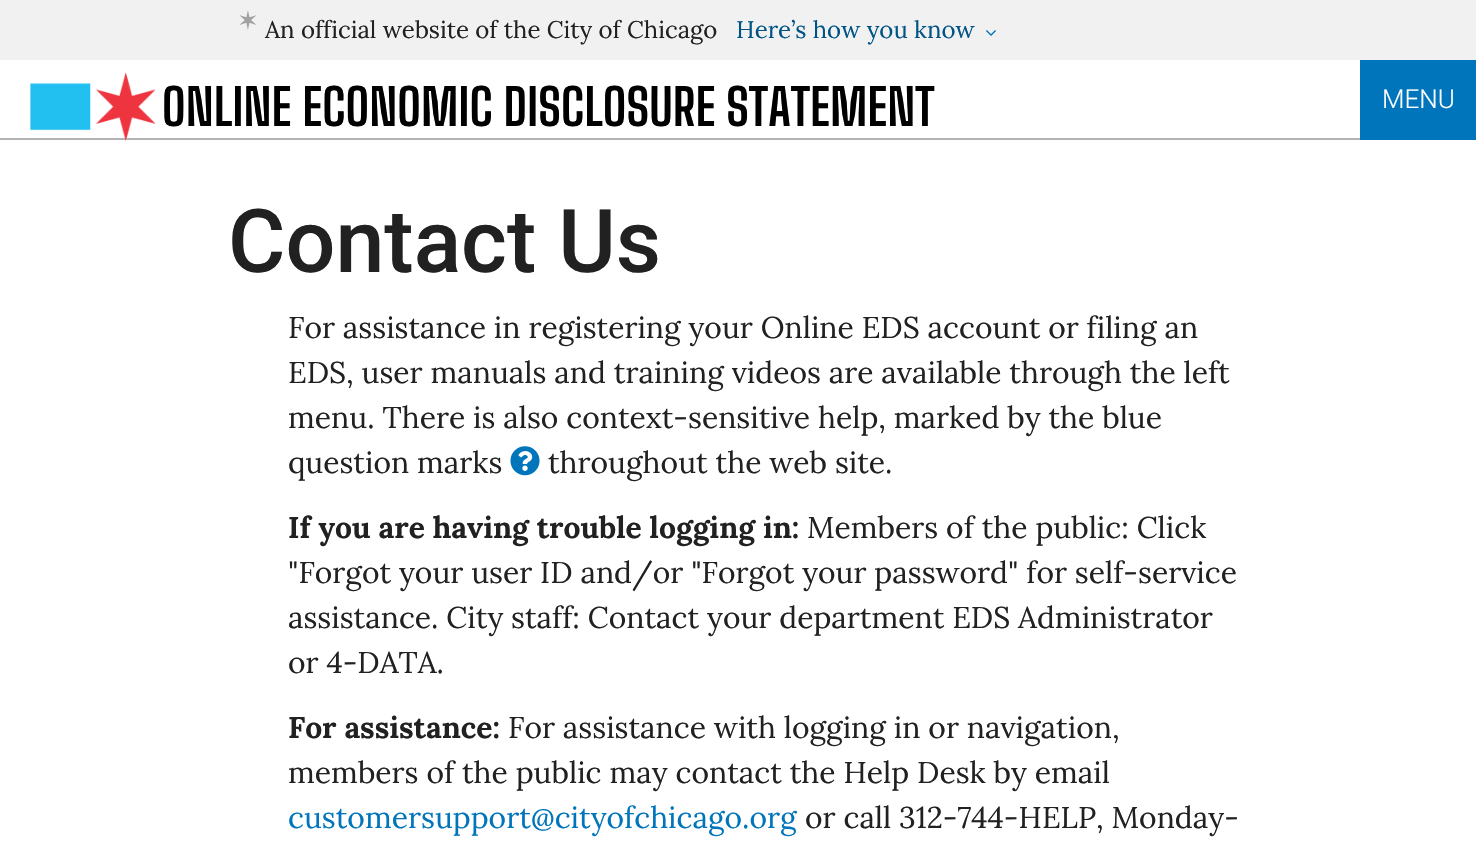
void draw(SkCanvas* canvas) {
	SkPaint paint;
	paint.setAntiAlias(true);
	canvas->clear(0xffffffff);
	paint.setColor(0xfff1f1f1);
	canvas->drawRect(SkRect::MakeXYWH(0, 0, 1476, 60), paint);
	canvas->drawImageRect(SkImages::DeferredFromEncodedData(SkData::MakeFromFileName("img1.png")), SkRect::MakeXYWH(239, 10, 18, 20), SkSamplingOptions());
	SkFont f1(fontMgr->matchFamilyStyle("Lora", SkFontStyle::Normal()), 24);
	f1.setSubpixel(true);
	paint.setColor(0xff212121);
	canvas->drawString("An official website of the City of Chicago", 265, 38, f1, paint);
	paint.setColor(0xff005485);
	canvas->drawString("Here’s how you know", 736, 38, f1, paint);
	canvas->drawImageRect(SkImages::DeferredFromEncodedData(SkData::MakeFromFileName("img2.png")), SkRect::MakeXYWH(986, 30, 10, 6), SkSamplingOptions());
	paint.setColor(0xffb3b3b3);
	canvas->drawRect(SkRect::MakeXYWH(0, 138, 1360, 2), paint);
	canvas->drawImageRect(SkImages::DeferredFromEncodedData(SkData::MakeFromFileName("img3.png")), SkRect::MakeXYWH(30, 72, 126, 69), SkSamplingOptions());
	SkFont f2(fontMgr->matchFamilyStyle("Big Shoulders Text", SkFontStyle::Bold()), 50);
	f2.setSubpixel(true);
	paint.setColor(0xff000000);
	canvas->drawString("ONLINE ECONOMIC DISCLOSURE STATEMENT", 162, 126, f2, paint);
	paint.setColor(0xff0075bb);
	canvas->drawRect(SkRect::MakeXYWH(1360, 60, 116, 80), paint);
	SkFont f3(fontMgr->matchFamilyStyle("Roboto", SkFontStyle(300, SkFontStyle::kNormal_Width, SkFontStyle::kUpright_Slant)), 26);
	f3.setSubpixel(true);
	paint.setColor(0xffffffff);
	canvas->drawString("MENU", 1382, 108, f3, paint);
	SkFont f4(fontMgr->matchFamilyStyle("Roboto", SkFontStyle(500, SkFontStyle::kNormal_Width, SkFontStyle::kUpright_Slant)), 88);
	f4.setSubpixel(true);
	paint.setColor(0xff212121);
	canvas->drawString("Contact Us", 228, 272, f4, paint);
	SkFont f5(fontMgr->matchFamilyStyle("Lora", SkFontStyle::Normal()), 30);
	f5.setSubpixel(true);
	canvas->drawString("For assistance in registering your Online EDS account or filing an", 288, 338, f5, paint);
	canvas->drawString("EDS, user manuals and training videos are available through the left", 288, 383, f5, paint);
	canvas->drawString("menu. There is also context-sensitive help, marked by the blue", 288, 428, f5, paint);
	canvas->drawString("question marks", 288, 473, f5, paint);
	canvas->drawImageRect(SkImages::DeferredFromEncodedData(SkData::MakeFromFileName("img4.png")), SkRect::MakeXYWH(510, 446, 30, 30), SkSamplingOptions());
	canvas->drawString("throughout the web site.", 548, 473, f5, paint);
	SkFont f6(fontMgr->matchFamilyStyle("Lora", SkFontStyle::Bold()), 30);
	f6.setSubpixel(true);
	canvas->drawString("If you are having trouble logging in:", 288, 538, f6, paint);
	canvas->drawString("Members of the public: Click", 807, 538, f5, paint);
	canvas->drawString("\"Forgot your user ID and/or \"Forgot your password\" for self-service", 288, 583, f5, paint);
	canvas->drawString("assistance. City staff: Contact your department EDS Administrator", 288, 628, f5, paint);
	canvas->drawString("or 4-DATA.", 288, 673, f5, paint);
	canvas->drawString("For assistance:", 288, 738, f6, paint);
	canvas->drawString("For assistance with logging in or navigation,", 508, 738, f5, paint);
	canvas->drawString("members of the public may contact the Help Desk by email", 288, 783, f5, paint);
	paint.setColor(0xff0075bb);
	canvas->drawString("customersupport@cityofchicago.org", 288, 828, f5, paint);
	paint.setColor(0xff212121);
	canvas->drawString("or call 312-744-HELP, Monday-", 805, 828, f5, paint);
}
